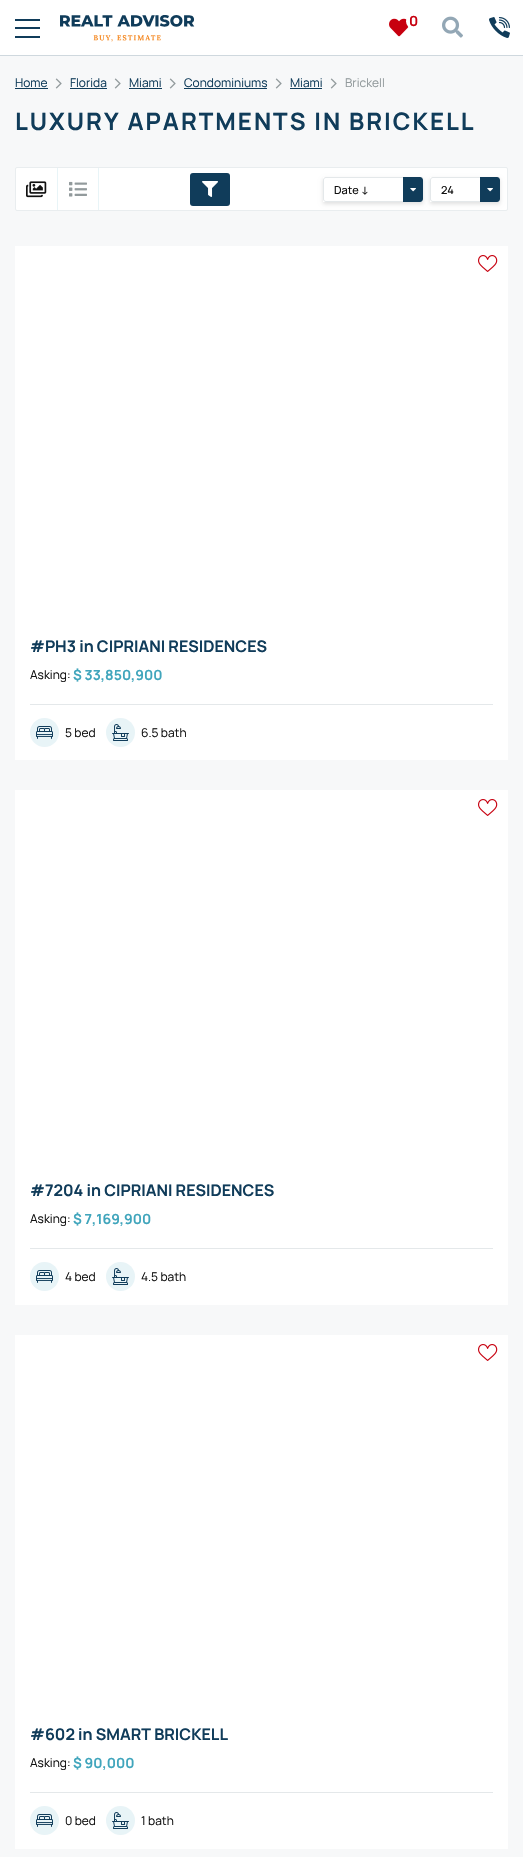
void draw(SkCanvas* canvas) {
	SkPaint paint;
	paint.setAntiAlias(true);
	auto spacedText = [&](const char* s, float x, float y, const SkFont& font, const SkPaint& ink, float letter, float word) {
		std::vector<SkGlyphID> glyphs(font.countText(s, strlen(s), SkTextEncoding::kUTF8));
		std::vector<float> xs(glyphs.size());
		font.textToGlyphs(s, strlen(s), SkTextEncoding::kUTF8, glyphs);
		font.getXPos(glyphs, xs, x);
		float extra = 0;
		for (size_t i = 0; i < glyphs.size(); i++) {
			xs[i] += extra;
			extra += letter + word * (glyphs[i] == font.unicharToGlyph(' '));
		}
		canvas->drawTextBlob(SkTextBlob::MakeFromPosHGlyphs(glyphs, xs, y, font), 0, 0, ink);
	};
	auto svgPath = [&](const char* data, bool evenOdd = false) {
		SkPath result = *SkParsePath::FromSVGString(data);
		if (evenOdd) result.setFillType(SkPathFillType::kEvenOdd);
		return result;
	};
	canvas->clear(0xfff7f8f9);
	paint.setColor(0xffffffff);
	canvas->drawRect(SkRect::MakeXYWH(0, 0, 523, 55), paint);
	paint.setColor(0xffcfd8de);
	canvas->drawRect(SkRect::MakeXYWH(0, 55, 523, 1), paint);
	paint.setColor(0xff103c5a);
	canvas->drawRect(SkRect::MakeXYWH(15, 19, 25, 2), paint);
	canvas->drawRect(SkRect::MakeXYWH(15, 27, 25, 2), paint);
	canvas->drawRect(SkRect::MakeXYWH(15, 36, 25, 2), paint);
	canvas->drawImageRect(SkImages::DeferredFromEncodedData(SkData::MakeFromFileName("img1.png")), SkRect::MakeXYWH(60, 15, 135, 27), SkSamplingOptions());
	canvas->drawImageRect(SkImages::DeferredFromEncodedData(SkData::MakeFromFileName("img2.png")), SkRect::MakeXYWH(389, 18, 20, 19), SkSamplingOptions());
	paint.setColor(0xffffffff);
	canvas->drawCircle(413.5, 21.5, 7.5, paint);
	SkFont f1(fontMgr->matchFamilyStyle("Manrope", SkFontStyle::Bold()), 14);
	f1.setSubpixel(true);
	paint.setColor(0xffc7000f);
	canvas->drawString("0", 409, 26, f1, paint);
	canvas->drawImageRect(SkImages::DeferredFromEncodedData(SkData::MakeFromFileName("img3.png")), SkRect::MakeXYWH(442, 16, 21, 22), SkSamplingOptions());
	canvas->drawImageRect(SkImages::DeferredFromEncodedData(SkData::MakeFromFileName("img4.png")), SkRect::MakeXYWH(489, 17, 21, 21), SkSamplingOptions());
	SkFont f2(fontMgr->matchFamilyStyle("Manrope", SkFontStyle::Normal()), 12);
	f2.setSubpixel(true);
	paint.setColor(0xff103c5a);
	canvas->drawString("Home", 15, 87, f2, paint);
	canvas->drawRect(SkRect::MakeXYWH(15, 88, 33, 1), paint);
	canvas->drawImageRect(SkImages::DeferredFromEncodedData(SkData::MakeFromFileName("img5.png")), SkRect::MakeXYWH(55, 78, 7, 11), SkSamplingOptions());
	canvas->drawString("Florida", 70, 87, f2, paint);
	canvas->drawRect(SkRect::MakeXYWH(70, 88, 37, 1), paint);
	canvas->drawImageRect(SkImages::DeferredFromEncodedData(SkData::MakeFromFileName("img5.png")), SkRect::MakeXYWH(114, 78, 7, 11), SkSamplingOptions());
	canvas->drawString("Miami", 129, 87, f2, paint);
	canvas->drawRect(SkRect::MakeXYWH(129, 88, 33, 1), paint);
	canvas->drawImageRect(SkImages::DeferredFromEncodedData(SkData::MakeFromFileName("img5.png")), SkRect::MakeXYWH(169, 78, 7, 11), SkSamplingOptions());
	canvas->drawString("Condominiums", 184, 87, f2, paint);
	canvas->drawRect(SkRect::MakeXYWH(184, 88, 83, 1), paint);
	canvas->drawImageRect(SkImages::DeferredFromEncodedData(SkData::MakeFromFileName("img5.png")), SkRect::MakeXYWH(275, 78, 7, 11), SkSamplingOptions());
	canvas->drawString("Miami", 290, 87, f2, paint);
	canvas->drawRect(SkRect::MakeXYWH(290, 88, 32, 1), paint);
	canvas->drawImageRect(SkImages::DeferredFromEncodedData(SkData::MakeFromFileName("img5.png")), SkRect::MakeXYWH(330, 78, 7, 11), SkSamplingOptions());
	paint.setColor(0xff929a9c);
	canvas->drawString("Brickell", 345, 87, f2, paint);
	SkFont f3(fontMgr->matchFamilyStyle("Manrope", SkFontStyle::Bold()), 24);
	f3.setSubpixel(true);
	paint.setColor(0xff103c5a);
	spacedText("LUXURY APARTMENTS IN BRICKELL", 15, 130, f3, paint, 2, 0);
	paint.setColor(0xffffffff);
	canvas->drawRoundRect(SkRect::MakeXYWH(15.5, 167.5, 492, 43), 1.5, 1.5, paint);
	paint.setStroke(true);
	paint.setStrokeWidth(1);
	paint.setColor(0xffe9edef);
	canvas->drawRoundRect(SkRect::MakeXYWH(15.5, 167.5, 492, 43), 1.5, 1.5, paint);
	paint.setStroke(false);
	paint.setColor(0xffe8f4f7);
	canvas->drawRect(SkRect::MakeXYWH(57, 168, 1, 42), paint);
	canvas->drawImageRect(SkImages::DeferredFromEncodedData(SkData::MakeFromFileName("img6.png")), SkRect::MakeXYWH(26, 181, 21, 17), SkSamplingOptions());
	canvas->drawRect(SkRect::MakeXYWH(98, 168, 1, 42), paint);
	canvas->drawImageRect(SkImages::DeferredFromEncodedData(SkData::MakeFromFileName("img7.png")), SkRect::MakeXYWH(69, 181, 18, 16), SkSamplingOptions());
	paint.setColor(0xff103c5a);
	canvas->drawRoundRect(SkRect::MakeXYWH(190, 173, 40, 33), 3, 3, paint);
	canvas->drawImageRect(SkImages::DeferredFromEncodedData(SkData::MakeFromFileName("img8.png")), SkRect::MakeXYWH(202, 181, 16, 16), SkSamplingOptions());
	canvas->save();
	canvas->clipPath(svgPath("M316 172H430V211H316ZM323 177H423V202H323Z", true), true);
	paint.setColor(0x1f000000);
	paint.setMaskFilter(SkMaskFilter::MakeBlur(kNormal_SkBlurStyle, 2));
	canvas->drawRect(SkRect::MakeXYWH(323, 179, 100, 25), paint);
	paint.setMaskFilter(nullptr);
	canvas->restore();
	paint.setStroke(true);
	paint.setColor(0xffe4e8ea);
	canvas->drawPath(svgPath("M326 177.5H422.5V201.5H326C324.5 201.5 323.5 200.5 323.5 199V180C323.5 178.5 324.5 177.5 326 177.5Z"), paint);
	SkFont f4(fontMgr->matchFamilyStyle("Manrope", SkFontStyle(500, SkFontStyle::kNormal_Width, SkFontStyle::kUpright_Slant)), 11);
	f4.setSubpixel(true);
	paint.setStroke(false);
	paint.setColor(0xff111111);
	canvas->drawString("Date ↓", 334, 194, f4, paint);
	paint.setColor(0xff103c5a);
	canvas->drawPath(svgPath("M403 177H420C421.5 177 423 178.5 423 180V199C423 200.5 421.5 202 420 202H403Z"), paint);
	canvas->drawImageRect(SkImages::DeferredFromEncodedData(SkData::MakeFromFileName("img9.png")), SkRect::MakeXYWH(410, 188, 6, 4), SkSamplingOptions());
	canvas->save();
	canvas->clipPath(svgPath("M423 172H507V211H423ZM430 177H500V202H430Z", true), true);
	paint.setColor(0x1f000000);
	paint.setMaskFilter(SkMaskFilter::MakeBlur(kNormal_SkBlurStyle, 2));
	canvas->drawRect(SkRect::MakeXYWH(430, 179, 70, 25), paint);
	paint.setMaskFilter(nullptr);
	canvas->restore();
	paint.setStroke(true);
	paint.setColor(0xffe4e8ea);
	canvas->drawPath(svgPath("M433 177.5H499.5V201.5H433C431.5 201.5 430.5 200.5 430.5 199V180C430.5 178.5 431.5 177.5 433 177.5Z"), paint);
	paint.setStroke(false);
	paint.setColor(0xff111111);
	canvas->drawString("24", 441, 194, f4, paint);
	paint.setColor(0xff103c5a);
	canvas->drawPath(svgPath("M480 177H497C498.5 177 500 178.5 500 180V199C500 200.5 498.5 202 497 202H480Z"), paint);
	canvas->drawImageRect(SkImages::DeferredFromEncodedData(SkData::MakeFromFileName("img9.png")), SkRect::MakeXYWH(487, 188, 6, 4), SkSamplingOptions());
	paint.setColor(0xffffffff);
	canvas->drawRect(SkRect::MakeXYWH(15, 246, 493, 514), paint);
	canvas->drawImageRect(SkImages::DeferredFromEncodedData(SkData::MakeFromFileName("img10.png")), SkRect::MakeXYWH(478, 255, 20, 17), SkSamplingOptions());
	SkFont f5(fontMgr->matchFamilyStyle("Manrope", SkFontStyle::Bold()), 16);
	f5.setSubpixel(true);
	paint.setColor(0xff103c5a);
	canvas->drawString("#PH3 in CIPRIANI RESIDENCES", 30, 652, f5, paint);
	paint.setColor(0xff111111);
	canvas->drawString("Asking:", 30, 679, f2, paint);
	paint.setColor(0xff40a5bc);
	canvas->drawString("$ 33,850,900", 73, 680, f1, paint);
	paint.setColor(0xffe4e8ea);
	canvas->drawRect(SkRect::MakeXYWH(30, 704, 463, 1), paint);
	paint.setColor(0xffe8f4f7);
	canvas->drawCircle(44.5, 732.5, 14.5, paint);
	canvas->drawImageRect(SkImages::DeferredFromEncodedData(SkData::MakeFromFileName("img11.png")), SkRect::MakeXYWH(36, 726, 17, 13), SkSamplingOptions());
	paint.setColor(0xff111111);
	canvas->drawString("5 bed", 65, 737, f2, paint);
	paint.setColor(0xffe8f4f7);
	canvas->drawCircle(120.5, 732.5, 14.5, paint);
	canvas->drawImageRect(SkImages::DeferredFromEncodedData(SkData::MakeFromFileName("img12.png")), SkRect::MakeXYWH(112, 724, 17, 17), SkSamplingOptions());
	paint.setColor(0xff111111);
	canvas->drawString("6.5 bath", 141, 737, f2, paint);
	paint.setColor(0xffffffff);
	canvas->drawRect(SkRect::MakeXYWH(15, 790, 493, 515), paint);
	canvas->drawImageRect(SkImages::DeferredFromEncodedData(SkData::MakeFromFileName("img10.png")), SkRect::MakeXYWH(478, 799, 20, 17), SkSamplingOptions());
	paint.setColor(0xff103c5a);
	canvas->drawString("#7204 in CIPRIANI RESIDENCES", 30, 1196, f5, paint);
	paint.setColor(0xff111111);
	canvas->drawString("Asking:", 30, 1223, f2, paint);
	paint.setColor(0xff40a5bc);
	canvas->drawString("$ 7,169,900", 73, 1224, f1, paint);
	paint.setColor(0xffe4e8ea);
	canvas->drawRect(SkRect::MakeXYWH(30, 1248, 463, 1), paint);
	paint.setColor(0xffe8f4f7);
	canvas->drawCircle(44.5, 1276.5, 14.5, paint);
	canvas->drawImageRect(SkImages::DeferredFromEncodedData(SkData::MakeFromFileName("img11.png")), SkRect::MakeXYWH(36, 1270, 17, 13), SkSamplingOptions());
	paint.setColor(0xff111111);
	canvas->drawString("4 bed", 65, 1281, f2, paint);
	paint.setColor(0xffe8f4f7);
	canvas->drawCircle(120.5, 1276.5, 14.5, paint);
	canvas->drawImageRect(SkImages::DeferredFromEncodedData(SkData::MakeFromFileName("img12.png")), SkRect::MakeXYWH(112, 1268, 17, 17), SkSamplingOptions());
	paint.setColor(0xff111111);
	canvas->drawString("4.5 bath", 141, 1281, f2, paint);
	paint.setColor(0xffffffff);
	canvas->drawRect(SkRect::MakeXYWH(15, 1335, 493, 514), paint);
	canvas->drawImageRect(SkImages::DeferredFromEncodedData(SkData::MakeFromFileName("img10.png")), SkRect::MakeXYWH(478, 1344, 20, 17), SkSamplingOptions());
	paint.setColor(0xff103c5a);
	canvas->drawString("#602 in SMART BRICKELL", 30, 1740, f5, paint);
	paint.setColor(0xff111111);
	canvas->drawString("Asking:", 30, 1767, f2, paint);
	paint.setColor(0xff40a5bc);
	canvas->drawString("$ 90,000", 73, 1768, f1, paint);
	paint.setColor(0xffe4e8ea);
	canvas->drawRect(SkRect::MakeXYWH(30, 1792, 463, 1), paint);
	paint.setColor(0xffe8f4f7);
	canvas->drawCircle(44.5, 1820.5, 14.5, paint);
	canvas->drawImageRect(SkImages::DeferredFromEncodedData(SkData::MakeFromFileName("img11.png")), SkRect::MakeXYWH(36, 1814, 17, 13), SkSamplingOptions());
	paint.setColor(0xff111111);
	canvas->drawString("0 bed", 65, 1825, f2, paint);
	paint.setColor(0xffe8f4f7);
	canvas->drawCircle(120.5, 1820.5, 14.5, paint);
	canvas->drawImageRect(SkImages::DeferredFromEncodedData(SkData::MakeFromFileName("img12.png")), SkRect::MakeXYWH(112, 1812, 17, 17), SkSamplingOptions());
	paint.setColor(0xff111111);
	canvas->drawString("1 bath", 141, 1825, f2, paint);
}
